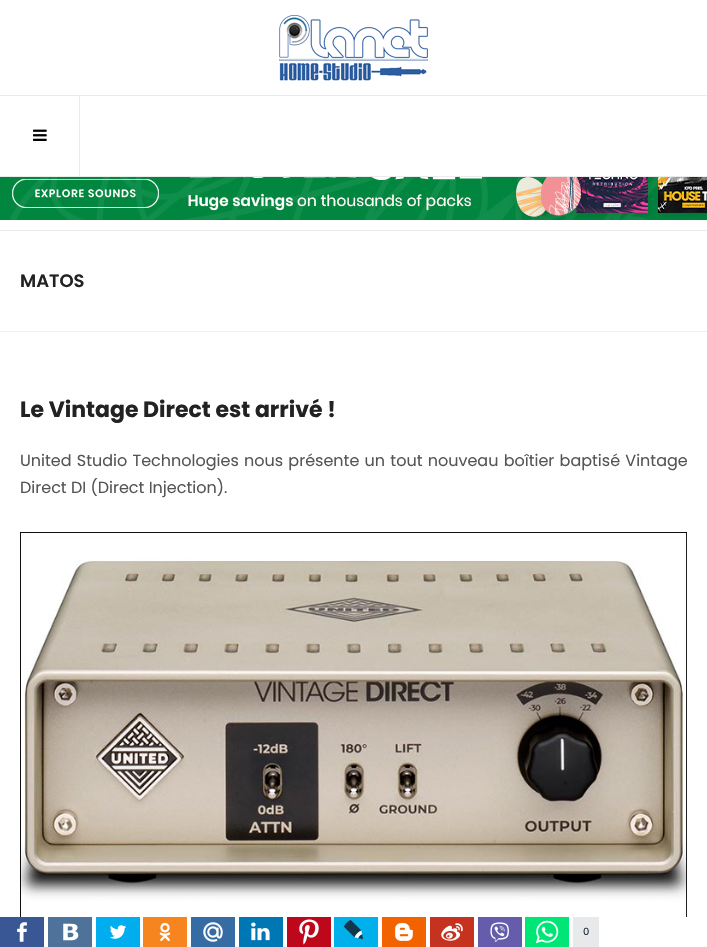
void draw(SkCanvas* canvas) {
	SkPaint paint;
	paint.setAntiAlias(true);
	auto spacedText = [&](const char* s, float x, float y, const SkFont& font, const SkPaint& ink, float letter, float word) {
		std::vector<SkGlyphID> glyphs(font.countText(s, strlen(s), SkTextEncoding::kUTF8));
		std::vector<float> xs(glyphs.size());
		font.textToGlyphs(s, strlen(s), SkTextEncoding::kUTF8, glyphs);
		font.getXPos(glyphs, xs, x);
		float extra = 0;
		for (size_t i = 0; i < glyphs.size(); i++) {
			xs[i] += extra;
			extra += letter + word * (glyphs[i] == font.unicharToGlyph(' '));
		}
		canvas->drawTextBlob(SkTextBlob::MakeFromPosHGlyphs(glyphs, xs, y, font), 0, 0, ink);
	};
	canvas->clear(0xffffffff);
	paint.setColor(0xffebebec);
	canvas->drawRect(SkRect::MakeXYWH(0, 176, 707, 1), paint);
	canvas->drawRect(SkRect::MakeXYWH(0, 95, 707, 1), paint);
	canvas->drawImageRect(SkImages::DeferredFromEncodedData(SkData::MakeFromFileName("img1.png")), SkRect::MakeXYWH(279, 15, 149, 66), SkSamplingOptions());
	canvas->drawRect(SkRect::MakeXYWH(79, 96, 1, 80), paint);
	canvas->drawImageRect(SkImages::DeferredFromEncodedData(SkData::MakeFromFileName("img2.png")), SkRect::MakeXYWH(33, 129, 14, 12), SkSamplingOptions());
	canvas->drawImageRect(SkImages::DeferredFromEncodedData(SkData::MakeFromFileName("img3.png")), SkRect::MakeXYWH(0, 177, 707, 43), SkSamplingOptions());
	canvas->drawRect(SkRect::MakeXYWH(0, 230, 707, 1), paint);
	paint.setColor(0xffefefef);
	canvas->drawRect(SkRect::MakeXYWH(0, 331, 707, 1), paint);
	SkFont f1(fontMgr->matchFamilyStyle("Poppins", SkFontStyle(600, SkFontStyle::kNormal_Width, SkFontStyle::kUpright_Slant)), 18);
	f1.setSubpixel(true);
	paint.setColor(0xff222222);
	canvas->drawString("MATOS", 20, 287, f1, paint);
	SkFont f2(fontMgr->matchFamilyStyle("Poppins", SkFontStyle::Bold()), 22);
	f2.setSubpixel(true);
	canvas->drawString("Le Vintage Direct est arrivé !", 20, 417, f2, paint);
	SkFont f3(fontMgr->matchFamilyStyle("Poppins", SkFontStyle::Normal()), 16);
	f3.setSubpixel(true);
	paint.setColor(0xff555555);
	spacedText("United Studio Technologies nous présente un tout nouveau boîtier baptisé Vintage", 20, 466, f3, paint, 0, 1);
	canvas->drawString("Direct DI (Direct Injection).", 20, 493, f3, paint);
	canvas->drawImageRect(SkImages::DeferredFromEncodedData(SkData::MakeFromFileName("img4.png")), SkRect::MakeXYWH(20, 532, 667, 385), SkSamplingOptions());
	paint.setColor(0xff3a5795);
	canvas->drawRect(SkRect::MakeXYWH(0, 917, 44, 30), paint);
	canvas->drawImageRect(SkImages::DeferredFromEncodedData(SkData::MakeFromFileName("img5.png")), SkRect::MakeXYWH(17, 922, 10, 20), SkSamplingOptions());
	paint.setColor(0xff4e7299);
	canvas->drawRect(SkRect::MakeXYWH(48, 917, 44, 30), paint);
	canvas->drawImageRect(SkImages::DeferredFromEncodedData(SkData::MakeFromFileName("img6.png")), SkRect::MakeXYWH(63, 923, 16, 18), SkSamplingOptions());
	paint.setColor(0xff00aeef);
	canvas->drawRect(SkRect::MakeXYWH(96, 917, 44, 30), paint);
	canvas->drawImageRect(SkImages::DeferredFromEncodedData(SkData::MakeFromFileName("img7.png")), SkRect::MakeXYWH(109, 925, 17, 14), SkSamplingOptions());
	paint.setColor(0xfff6851f);
	canvas->drawRect(SkRect::MakeXYWH(143, 917, 44, 30), paint);
	canvas->drawImageRect(SkImages::DeferredFromEncodedData(SkData::MakeFromFileName("img8.png")), SkRect::MakeXYWH(159, 922, 12, 20), SkSamplingOptions());
	paint.setColor(0xff356ca4);
	canvas->drawRect(SkRect::MakeXYWH(191, 917, 44, 30), paint);
	canvas->drawImageRect(SkImages::DeferredFromEncodedData(SkData::MakeFromFileName("img9.png")), SkRect::MakeXYWH(203, 922, 20, 20), SkSamplingOptions());
	paint.setColor(0xff0077b5);
	canvas->drawRect(SkRect::MakeXYWH(239, 917, 44, 30), paint);
	canvas->drawImageRect(SkImages::DeferredFromEncodedData(SkData::MakeFromFileName("img10.png")), SkRect::MakeXYWH(251, 922, 19, 19), SkSamplingOptions());
	paint.setColor(0xffbd081c);
	canvas->drawRect(SkRect::MakeXYWH(287, 917, 44, 30), paint);
	canvas->drawImageRect(SkImages::DeferredFromEncodedData(SkData::MakeFromFileName("img11.png")), SkRect::MakeXYWH(299, 919, 20, 26), SkSamplingOptions());
	paint.setColor(0xff00b0ea);
	canvas->drawRect(SkRect::MakeXYWH(334, 917, 44, 30), paint);
	canvas->drawImageRect(SkImages::DeferredFromEncodedData(SkData::MakeFromFileName("img12.png")), SkRect::MakeXYWH(344, 920, 19, 20), SkSamplingOptions());
	paint.setColor(0xfff26300);
	canvas->drawRect(SkRect::MakeXYWH(382, 917, 44, 30), paint);
	canvas->drawImageRect(SkImages::DeferredFromEncodedData(SkData::MakeFromFileName("img13.png")), SkRect::MakeXYWH(395, 923, 18, 18), SkSamplingOptions());
	paint.setColor(0xffc53220);
	canvas->drawRect(SkRect::MakeXYWH(430, 917, 44, 30), paint);
	canvas->drawImageRect(SkImages::DeferredFromEncodedData(SkData::MakeFromFileName("img14.png")), SkRect::MakeXYWH(441, 923, 22, 18), SkSamplingOptions());
	paint.setColor(0xff665cac);
	canvas->drawRect(SkRect::MakeXYWH(478, 917, 44, 30), paint);
	canvas->drawImageRect(SkImages::DeferredFromEncodedData(SkData::MakeFromFileName("img15.png")), SkRect::MakeXYWH(490, 922, 19, 20), SkSamplingOptions());
	paint.setColor(0xff00e676);
	canvas->drawRect(SkRect::MakeXYWH(525, 917, 44, 30), paint);
	canvas->drawImageRect(SkImages::DeferredFromEncodedData(SkData::MakeFromFileName("img16.png")), SkRect::MakeXYWH(535, 920, 24, 24), SkSamplingOptions());
	paint.setColor(0xffe7e9eb);
	canvas->drawRect(SkRect::MakeXYWH(573, 917, 26, 30), paint);
	SkFont f4(fontMgr->matchFamilyStyle("Poppins", SkFontStyle::Normal()), 10);
	f4.setSubpixel(true);
	paint.setColor(0xff122334);
	canvas->drawString("0", 583, 935, f4, paint);
}
